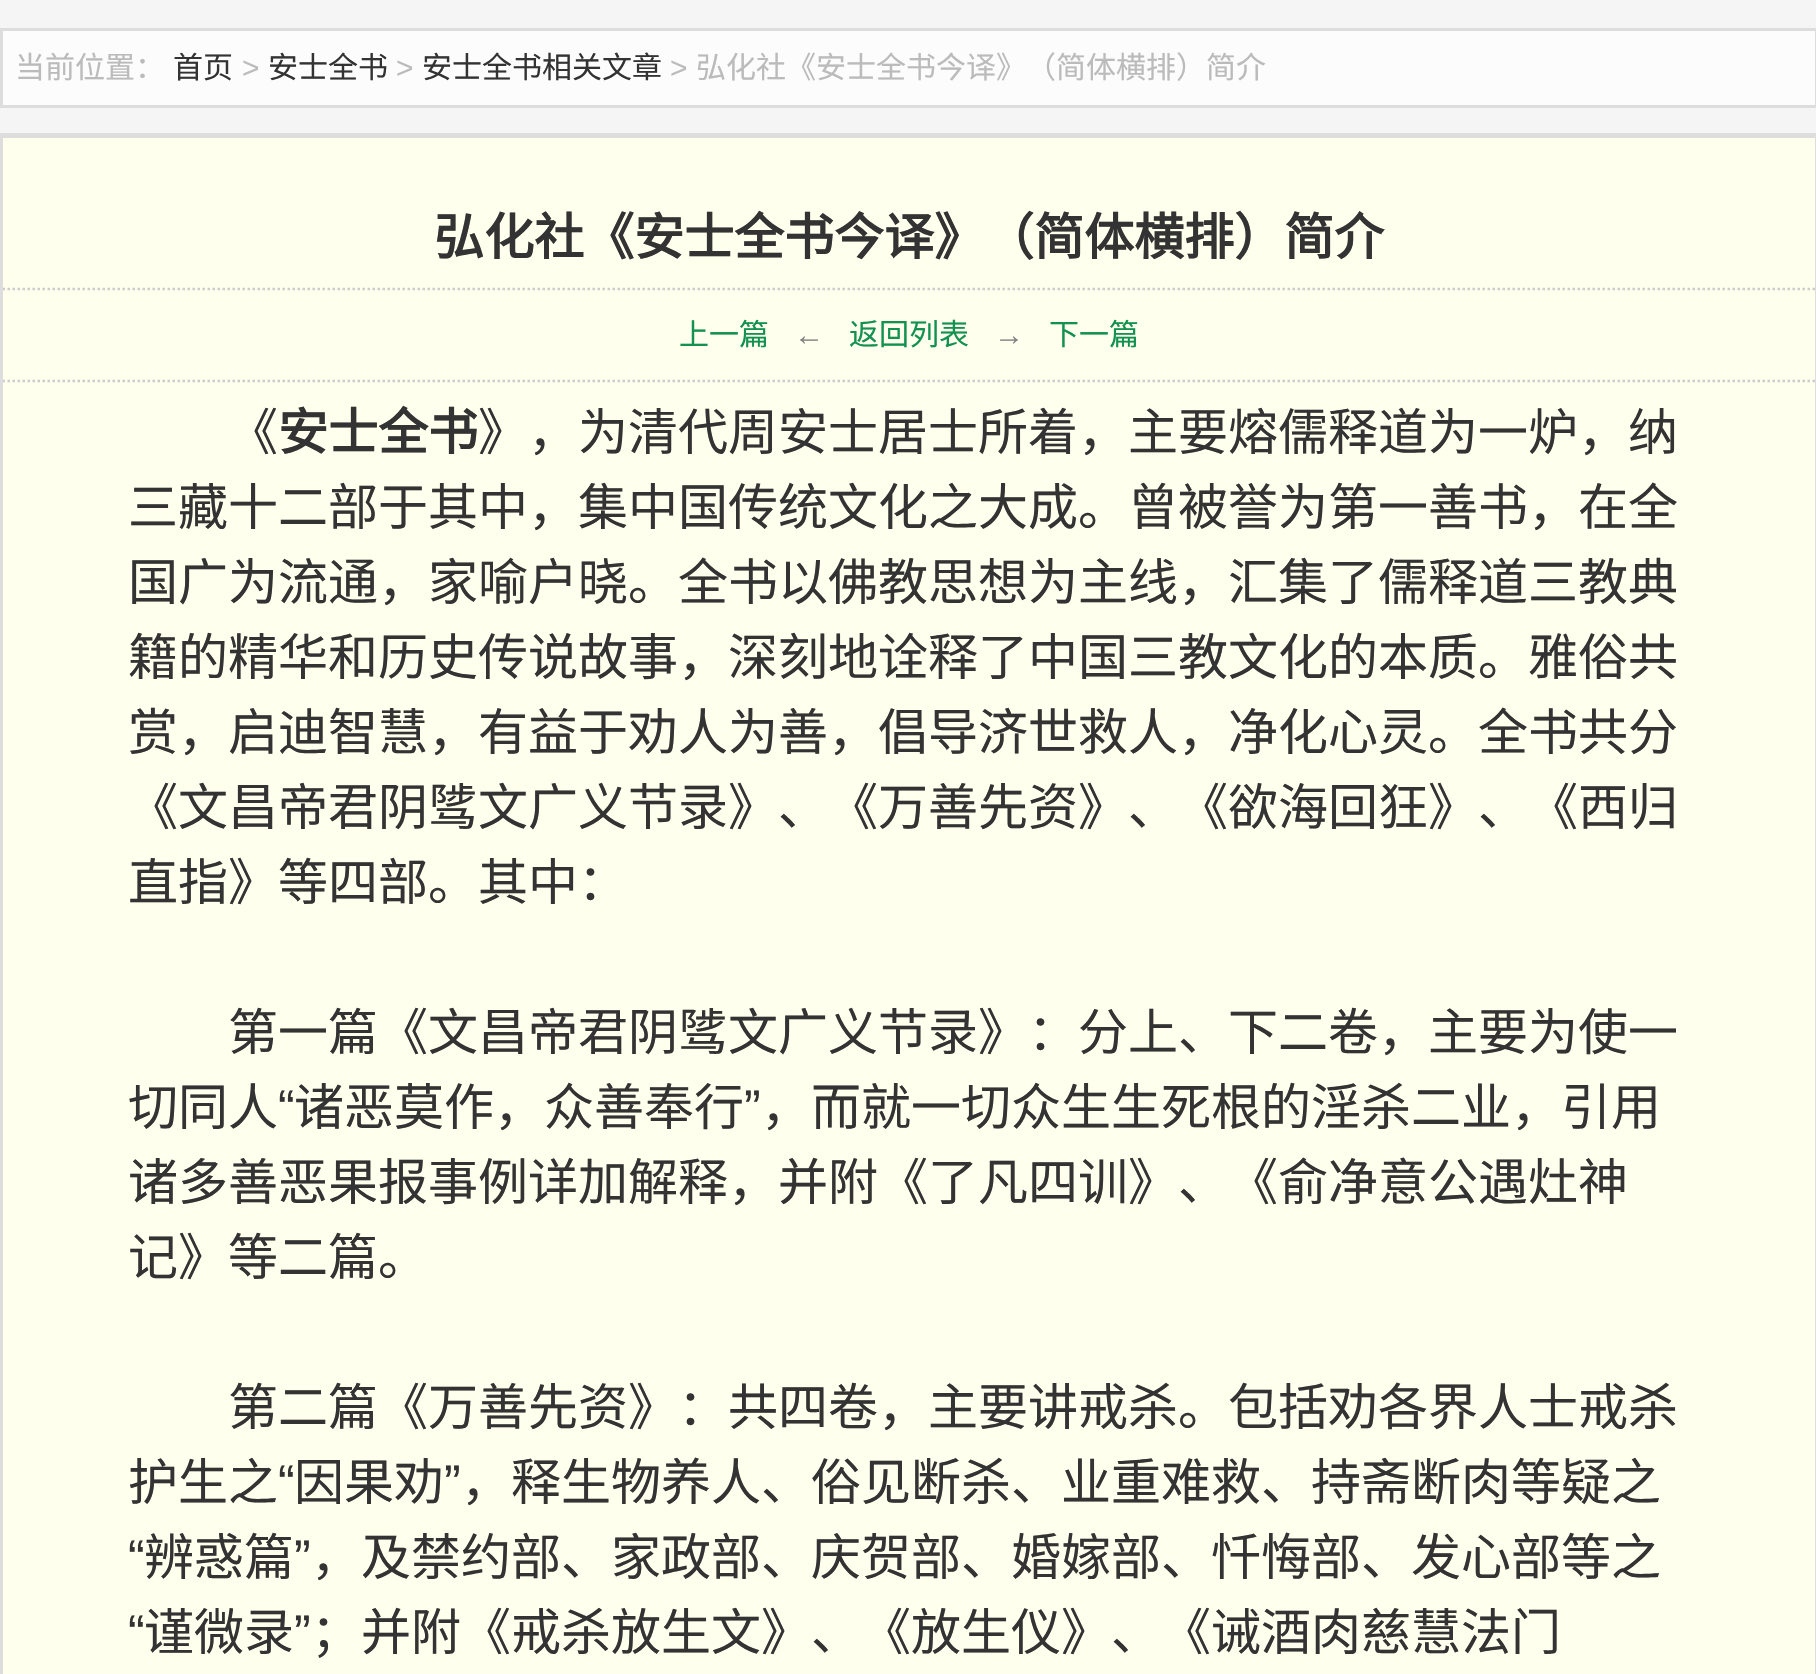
void draw(SkCanvas* canvas) {
	SkPaint paint;
	paint.setAntiAlias(true);
	auto svgPath = [&](const char* data, bool evenOdd = false) {
		SkPath result = *SkParsePath::FromSVGString(data);
		if (evenOdd) result.setFillType(SkPathFillType::kEvenOdd);
		return result;
	};
	canvas->clear(0xfff5f5f5);
	paint.setColor(0xfffcfcfc);
	canvas->drawRect(SkRect::MakeXYWH(1.5, 29.5, 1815, 77), paint);
	paint.setStroke(true);
	paint.setStrokeWidth(3);
	paint.setColor(0xffdddddd);
	canvas->drawRect(SkRect::MakeXYWH(1.5, 29.5, 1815, 77), paint);
	SkFont f1(fontMgr->matchFamilyStyle("Noto Sans CJK SC", SkFontStyle::Normal()), 30);
	f1.setSubpixel(true);
	paint.setStroke(false);
	paint.setColor(0xffbbbbbb);
	canvas->drawString("当前位置：", 15, 78, f1, paint);
	paint.setColor(0xff333333);
	canvas->drawString("首页", 173, 78, f1, paint);
	SkFont f2(fontMgr->matchFamilyStyle("Liberation Sans", SkFontStyle::Normal()), 30);
	f2.setSubpixel(true);
	paint.setColor(0xffbbbbbb);
	canvas->drawString(">", 242, 78, f2, paint);
	paint.setColor(0xff333333);
	canvas->drawString("安士全书", 268, 78, f1, paint);
	paint.setColor(0xffbbbbbb);
	canvas->drawString(">", 396, 78, f2, paint);
	paint.setColor(0xff333333);
	canvas->drawString("安士全书相关文章", 422, 78, f1, paint);
	paint.setColor(0xffbbbbbb);
	canvas->drawString(">", 670, 78, f2, paint);
	canvas->drawString("弘化社《安士全书今译》（简体横排）简介", 696, 78, f1, paint);
	paint.setStroke(true);
	paint.setColor(0xffdddddd);
	canvas->drawRect(SkRect::MakeXYWH(1.5, 134.5, 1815, 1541), paint);
	paint.setStroke(false);
	canvas->drawRect(SkRect::MakeXYWH(3, 136, 1812, 2), paint);
	paint.setColor(0xffffffed);
	canvas->drawRect(SkRect::MakeXYWH(3, 138, 1812, 1536), paint);
	SkFont f3(fontMgr->matchFamilyStyle("Noto Sans CJK SC", SkFontStyle::Bold()), 50);
	f3.setSubpixel(true);
	paint.setColor(0xff333333);
	canvas->drawString("弘化社《安士全书今译》（简体横排）简介", 434, 255, f3, paint);
	canvas->save();
	canvas->clipRect(SkRect::MakeXYWH(3, 138, 1812, 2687));
	paint.setStroke(true);
	paint.setStrokeWidth(2.5);
	paint.setColor(0xffcccccc);
	paint.setPathEffect(SkDashPathEffect::Make({{2.5f, 2.5f}}, 0));
	canvas->drawPath(svgPath("M2.5 289H1815"), paint);
	paint.setPathEffect(nullptr);
	paint.setPathEffect(SkDashPathEffect::Make({{2.5f, 2.5f}}, 0));
	canvas->drawPath(svgPath("M2.5 381H1815"), paint);
	paint.setPathEffect(nullptr);
	canvas->restore();
	paint.setStroke(false);
	paint.setColor(0xff129151);
	canvas->drawString("上一篇", 679, 345, f1, paint);
	paint.setColor(0xff808080);
	canvas->drawString("←", 794, 345, f2, paint);
	paint.setColor(0xff129151);
	canvas->drawString("返回列表", 849, 345, f1, paint);
	paint.setColor(0xff808080);
	canvas->drawString("→", 994, 345, f2, paint);
	paint.setColor(0xff129151);
	canvas->drawString("下一篇", 1049, 345, f1, paint);
	SkFont f4(fontMgr->matchFamilyStyle("Noto Sans CJK SC", SkFontStyle::Normal()), 50);
	f4.setSubpixel(true);
	paint.setColor(0xff333333);
	canvas->drawString("《", 228, 450, f4, paint);
	canvas->drawString("安士全书", 278, 450, f3, paint);
	canvas->drawString("》，为清代周安士居士所着，主要熔儒释道为一炉，纳", 478, 450, f4, paint);
	canvas->drawString("三藏十二部于其中，集中国传统文化之大成。曾被誉为第一善书，在全", 128, 525, f4, paint);
	canvas->drawString("国广为流通，家喻户晓。全书以佛教思想为主线，汇集了儒释道三教典", 128, 600, f4, paint);
	canvas->drawString("籍的精华和历史传说故事，深刻地诠释了中国三教文化的本质。雅俗共", 128, 675, f4, paint);
	canvas->drawString("赏，启迪智慧，有益于劝人为善，倡导济世救人，净化心灵。全书共分", 128, 750, f4, paint);
	canvas->drawString("《文昌帝君阴骘文广义节录》、《万善先资》、《欲海回狂》、《西归", 128, 825, f4, paint);
	canvas->drawString("直指》等四部。其中：", 128, 900, f4, paint);
	canvas->drawString("第一篇《文昌帝君阴骘文广义节录》：分上、下二卷，主要为使一", 228, 1050, f4, paint);
	canvas->drawString("切同人", 128, 1125, f4, paint);
	SkFont f5(fontMgr->matchFamilyStyle("Liberation Sans", SkFontStyle::Normal()), 50);
	f5.setSubpixel(true);
	canvas->drawString("“", 278, 1125, f5, paint);
	canvas->drawString("诸恶莫作，众善奉行", 294, 1125, f4, paint);
	canvas->drawString("”", 744, 1125, f5, paint);
	canvas->drawString("，而就一切众生生死根的淫杀二业，引用", 761, 1125, f4, paint);
	canvas->drawString("诸多善恶果报事例详加解释，并附《了凡四训》、《俞净意公遇灶神", 128, 1200, f4, paint);
	canvas->drawString("记》等二篇。", 128, 1275, f4, paint);
	canvas->drawString("第二篇《万善先资》：共四卷，主要讲戒杀。包括劝各界人士戒杀", 228, 1425, f4, paint);
	canvas->drawString("护生之", 128, 1500, f4, paint);
	canvas->drawString("“", 278, 1500, f5, paint);
	canvas->drawString("因果劝", 294, 1500, f4, paint);
	canvas->drawString("”", 444, 1500, f5, paint);
	canvas->drawString("，释生物养人、俗见断杀、业重难救、持斋断肉等疑之", 461, 1500, f4, paint);
	canvas->drawString("“", 128, 1575, f5, paint);
	canvas->drawString("辨惑篇", 144, 1575, f4, paint);
	canvas->drawString("”", 294, 1575, f5, paint);
	canvas->drawString("，及禁约部、家政部、庆贺部、婚嫁部、忏悔部、发心部等之", 311, 1575, f4, paint);
	canvas->drawString("“", 128, 1650, f5, paint);
	canvas->drawString("谨微录", 144, 1650, f4, paint);
	canvas->drawString("”", 294, 1650, f5, paint);
	canvas->drawString("；并附《戒杀放生文》、《放生仪》、《诫酒肉慈慧法门", 311, 1650, f4, paint);
}
